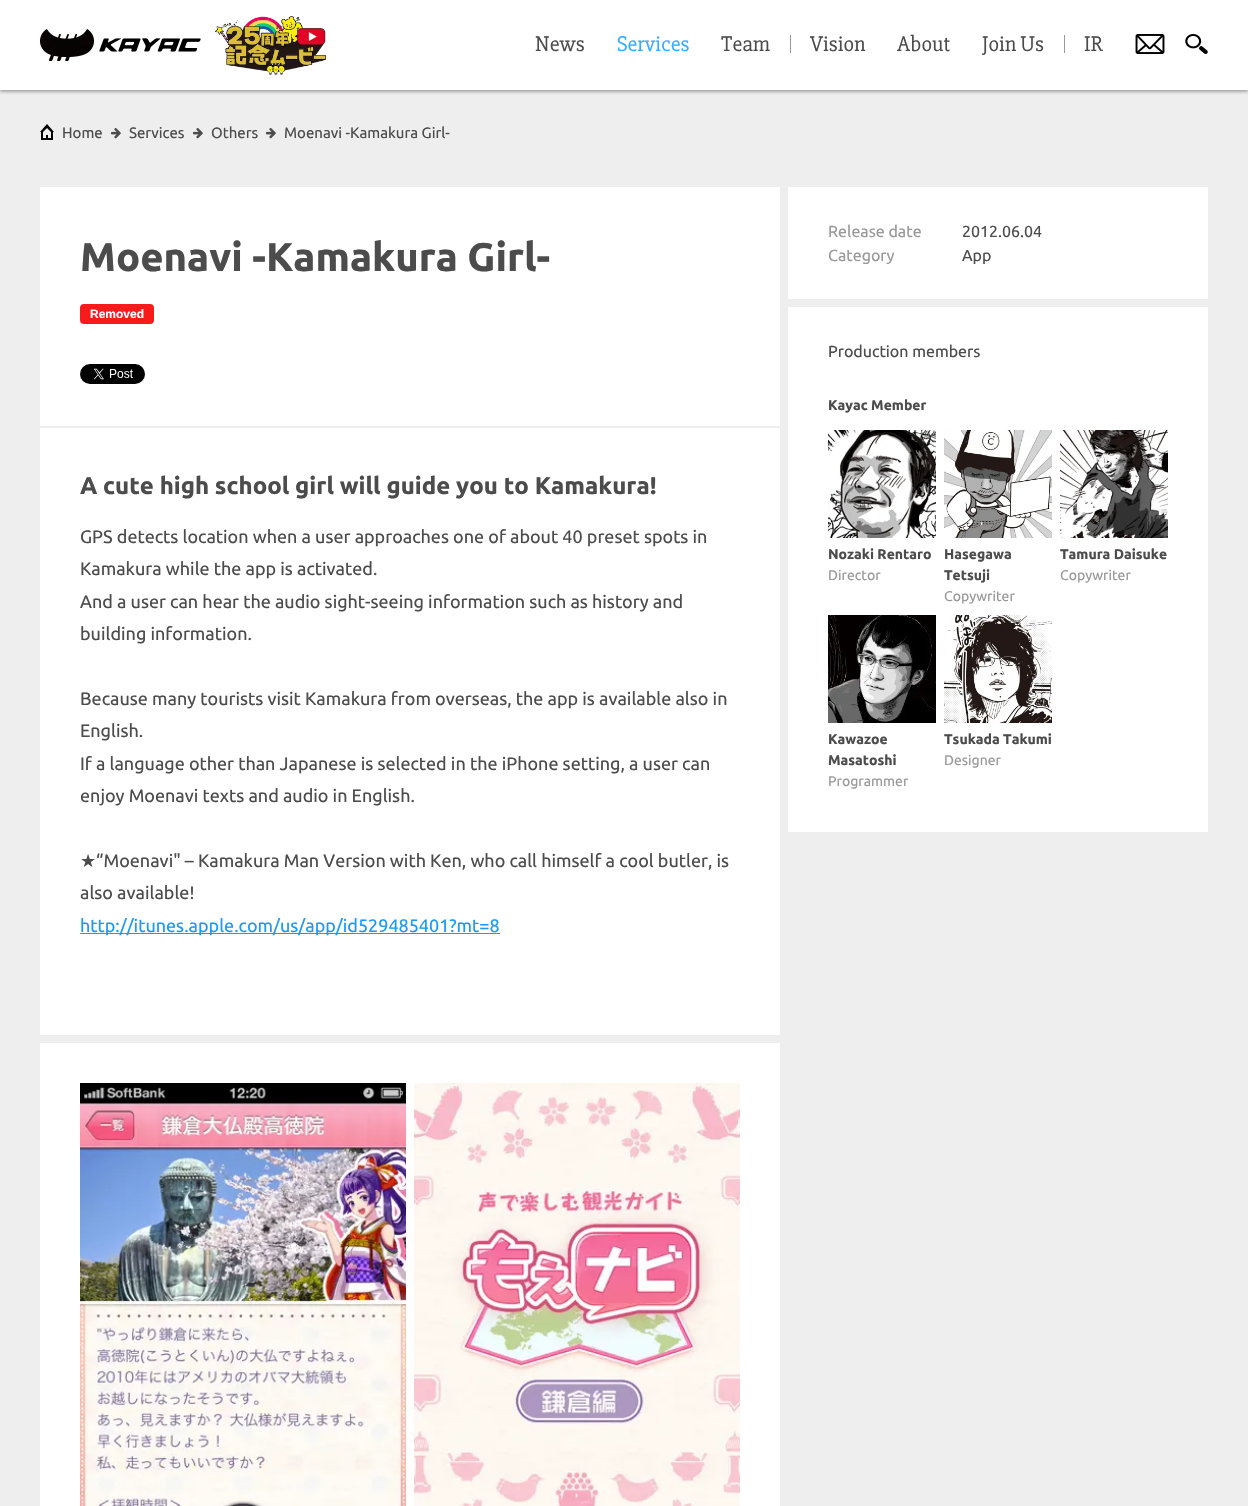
void draw(SkCanvas* canvas) {
	SkPaint paint;
	paint.setAntiAlias(true);
	canvas->clear(0xffeeeeee);
	paint.setColor(0x4d000000);
	paint.setMaskFilter(SkMaskFilter::MakeBlur(kNormal_SkBlurStyle, 1.5));
	canvas->drawRect(SkRect::MakeXYWH(0, 2, 1248, 90), paint);
	paint.setMaskFilter(nullptr);
	paint.setColor(0xffffffff);
	canvas->drawRect(SkRect::MakeXYWH(0, 0, 1248, 90), paint);
	canvas->drawImageRect(SkImages::DeferredFromEncodedData(SkData::MakeFromFileName("img1.png")), SkRect::MakeXYWH(40, 29, 54, 32), SkSamplingOptions());
	canvas->drawImageRect(SkImages::DeferredFromEncodedData(SkData::MakeFromFileName("img2.png")), SkRect::MakeXYWH(99, 38, 102, 14), SkSamplingOptions());
	canvas->drawImageRect(SkImages::DeferredFromEncodedData(SkData::MakeFromFileName("img3.png")), SkRect::MakeXYWH(215, 16, 111, 59), SkSamplingOptions());
	SkFont f1(fontMgr->matchFamilyStyle("Slabo 27px", SkFontStyle::Normal()), 22);
	f1.setSubpixel(true);
	paint.setColor(0xff4c4c4c);
	canvas->drawString("News", 535, 51, f1, paint);
	paint.setColor(0xff33aeff);
	canvas->drawString("Services", 617, 51, f1, paint);
	paint.setColor(0xff4c4c4c);
	canvas->drawString("Team", 721, 51, f1, paint);
	paint.setColor(0xff999999);
	canvas->drawRect(SkRect::MakeXYWH(790, 35, 1, 18), paint);
	paint.setColor(0xff4c4c4c);
	canvas->drawString("Vision", 810, 51, f1, paint);
	canvas->drawString("About", 897, 51, f1, paint);
	canvas->drawString("Join Us", 982, 51, f1, paint);
	paint.setColor(0xff999999);
	canvas->drawRect(SkRect::MakeXYWH(1064, 35, 1, 18), paint);
	paint.setColor(0xff4c4c4c);
	canvas->drawString("IR", 1084, 51, f1, paint);
	canvas->drawImageRect(SkImages::DeferredFromEncodedData(SkData::MakeFromFileName("img4.png")), SkRect::MakeXYWH(1135, 34, 30, 20), SkSamplingOptions());
	canvas->drawImageRect(SkImages::DeferredFromEncodedData(SkData::MakeFromFileName("img5.png")), SkRect::MakeXYWH(1185, 34, 23, 20), SkSamplingOptions());
	canvas->drawImageRect(SkImages::DeferredFromEncodedData(SkData::MakeFromFileName("img6.png")), SkRect::MakeXYWH(40, 124, 14, 16), SkSamplingOptions());
	SkFont f2(fontMgr->matchFamilyStyle("Ubuntu", SkFontStyle::Normal()), 15);
	f2.setSubpixel(true);
	canvas->drawString("Home", 62, 138, f2, paint);
	canvas->drawImageRect(SkImages::DeferredFromEncodedData(SkData::MakeFromFileName("img7.png")), SkRect::MakeXYWH(111, 128, 10, 11), SkSamplingOptions());
	canvas->drawString("Services", 129, 138, f2, paint);
	canvas->drawImageRect(SkImages::DeferredFromEncodedData(SkData::MakeFromFileName("img7.png")), SkRect::MakeXYWH(193, 128, 10, 11), SkSamplingOptions());
	canvas->drawString("Others", 211, 138, f2, paint);
	canvas->drawImageRect(SkImages::DeferredFromEncodedData(SkData::MakeFromFileName("img7.png")), SkRect::MakeXYWH(266, 128, 10, 11), SkSamplingOptions());
	canvas->drawString("Moenavi -Kamakura Girl-", 284, 138, f2, paint);
	paint.setColor(0xffffffff);
	canvas->drawRect(SkRect::MakeXYWH(40, 187, 740, 239), paint);
	SkFont f3(fontMgr->matchFamilyStyle("Ubuntu", SkFontStyle::Bold()), 40);
	f3.setSubpixel(true);
	paint.setColor(0xff4c4c4c);
	canvas->drawString("Moenavi -Kamakura Girl-", 80, 271, f3, paint);
	paint.setColor(0xfff71b1b);
	canvas->drawRoundRect(SkRect::MakeXYWH(81, 305, 72, 18), 3, 3, paint);
	paint.setStroke(true);
	paint.setStrokeWidth(2);
	canvas->drawRoundRect(SkRect::MakeXYWH(81, 305, 72, 18), 3, 3, paint);
	SkFont f4(fontMgr->matchFamilyStyle("Liberation Sans", SkFontStyle::Bold()), 12);
	f4.setSubpixel(true);
	paint.setStroke(false);
	paint.setColor(0xffffffff);
	canvas->drawString("Removed", 90, 318, f4, paint);
	canvas->drawImageRect(SkImages::DeferredFromEncodedData(SkData::MakeFromFileName("img8.png")), SkRect::MakeXYWH(80, 364, 65, 20), SkSamplingOptions());
	canvas->drawRect(SkRect::MakeXYWH(40, 428, 740, 607), paint);
	SkFont f5(fontMgr->matchFamilyStyle("Ubuntu", SkFontStyle::Bold()), 24);
	f5.setSubpixel(true);
	paint.setColor(0xff4c4c4c);
	canvas->drawString("A cute high school girl will guide you to Kamakura!", 80, 494, f5, paint);
	SkFont f6(fontMgr->matchFamilyStyle("Ubuntu", SkFontStyle::Normal()), 18);
	f6.setSubpixel(true);
	canvas->drawString("GPS detects location when a user approaches one of about 40 preset spots in", 80, 543, f6, paint);
	canvas->drawString("Kamakura while the app is activated.", 80, 575, f6, paint);
	canvas->drawString("And a user can hear the audio sight-seeing information such as history and", 80, 608, f6, paint);
	canvas->drawString("building information.", 80, 640, f6, paint);
	canvas->drawString("Because many tourists visit Kamakura from overseas, the app is available also in", 80, 705, f6, paint);
	canvas->drawString("English.", 80, 737, f6, paint);
	canvas->drawString("If a language other than Japanese is selected in the iPhone setting, a user can", 80, 770, f6, paint);
	canvas->drawString("enjoy Moenavi texts and audio in English.", 80, 802, f6, paint);
	SkFont f7(fontMgr->matchFamilyStyle("DejaVu Sans", SkFontStyle::Normal()), 18);
	f7.setSubpixel(true);
	canvas->drawString("★", 80, 867, f7, paint);
	canvas->drawString("“Moenavi\" – Kamakura Man Version with Ken, who call himself a cool butler, is", 96, 867, f6, paint);
	canvas->drawString("also available!", 80, 899, f6, paint);
	paint.setColor(0xff1b9af7);
	canvas->drawRect(SkRect::MakeXYWH(80, 933, 420, 1), paint);
	canvas->drawString("http://itunes.apple.com/us/app/id529485401?mt=8", 80, 932, f6, paint);
	paint.setColor(0xffffffff);
	canvas->drawRect(SkRect::MakeXYWH(40, 1043, 740, 463), paint);
	canvas->drawImageRect(SkImages::DeferredFromEncodedData(SkData::MakeFromFileName("img9.png")), SkRect::MakeXYWH(80, 1083, 326, 423), SkSamplingOptions());
	canvas->drawImageRect(SkImages::DeferredFromEncodedData(SkData::MakeFromFileName("img10.png")), SkRect::MakeXYWH(414, 1083, 326, 423), SkSamplingOptions());
	canvas->drawRect(SkRect::MakeXYWH(788, 187, 420, 112), paint);
	SkFont f8(fontMgr->matchFamilyStyle("Ubuntu", SkFontStyle::Normal()), 16);
	f8.setSubpixel(true);
	paint.setColor(0xff999999);
	canvas->drawString("Release date", 828, 237, f8, paint);
	paint.setColor(0xff4c4c4c);
	canvas->drawString("2012.06.04", 962, 237, f8, paint);
	paint.setColor(0xff999999);
	canvas->drawString("Category", 828, 261, f8, paint);
	paint.setColor(0xff4c4c4c);
	canvas->drawString("App", 962, 261, f8, paint);
	paint.setColor(0xffffffff);
	canvas->drawRect(SkRect::MakeXYWH(788, 307, 420, 525), paint);
	paint.setColor(0xff4c4c4c);
	canvas->drawString("Production members", 828, 357, f8, paint);
	SkFont f9(fontMgr->matchFamilyStyle("Ubuntu", SkFontStyle::Bold()), 14);
	f9.setSubpixel(true);
	canvas->drawString("Kayac Member", 828, 410, f9, paint);
	canvas->drawImageRect(SkImages::DeferredFromEncodedData(SkData::MakeFromFileName("img11.png")), SkRect::MakeXYWH(828, 430, 108, 108), SkSamplingOptions());
	canvas->drawString("Nozaki Rentaro", 828, 559, f9, paint);
	SkFont f10(fontMgr->matchFamilyStyle("Ubuntu", SkFontStyle::Normal()), 14);
	f10.setSubpixel(true);
	paint.setColor(0xff999999);
	canvas->drawString("Director", 828, 580, f10, paint);
	canvas->drawImageRect(SkImages::DeferredFromEncodedData(SkData::MakeFromFileName("img12.png")), SkRect::MakeXYWH(944, 430, 108, 108), SkSamplingOptions());
	paint.setColor(0xff4c4c4c);
	canvas->drawString("Hasegawa", 944, 559, f9, paint);
	canvas->drawString("Tetsuji", 944, 580, f9, paint);
	paint.setColor(0xff999999);
	canvas->drawString("Copywriter", 944, 601, f10, paint);
	canvas->drawImageRect(SkImages::DeferredFromEncodedData(SkData::MakeFromFileName("img13.png")), SkRect::MakeXYWH(1060, 430, 108, 108), SkSamplingOptions());
	paint.setColor(0xff4c4c4c);
	canvas->drawString("Tamura Daisuke", 1060, 559, f9, paint);
	paint.setColor(0xff999999);
	canvas->drawString("Copywriter", 1060, 580, f10, paint);
	canvas->drawImageRect(SkImages::DeferredFromEncodedData(SkData::MakeFromFileName("img14.png")), SkRect::MakeXYWH(828, 615, 108, 108), SkSamplingOptions());
	paint.setColor(0xff4c4c4c);
	canvas->drawString("Kawazoe", 828, 744, f9, paint);
	canvas->drawString("Masatoshi", 828, 765, f9, paint);
	paint.setColor(0xff999999);
	canvas->drawString("Programmer", 828, 786, f10, paint);
	paint.setColor(0xffffffff);
	canvas->drawRect(SkRect::MakeXYWH(908, 778, 1, 2), paint);
	canvas->drawImageRect(SkImages::DeferredFromEncodedData(SkData::MakeFromFileName("img15.png")), SkRect::MakeXYWH(944, 615, 108, 108), SkSamplingOptions());
	paint.setColor(0xff4c4c4c);
	canvas->drawString("Tsukada Takumi", 944, 744, f9, paint);
	paint.setColor(0xff999999);
	canvas->drawString("Designer", 944, 765, f10, paint);
}
